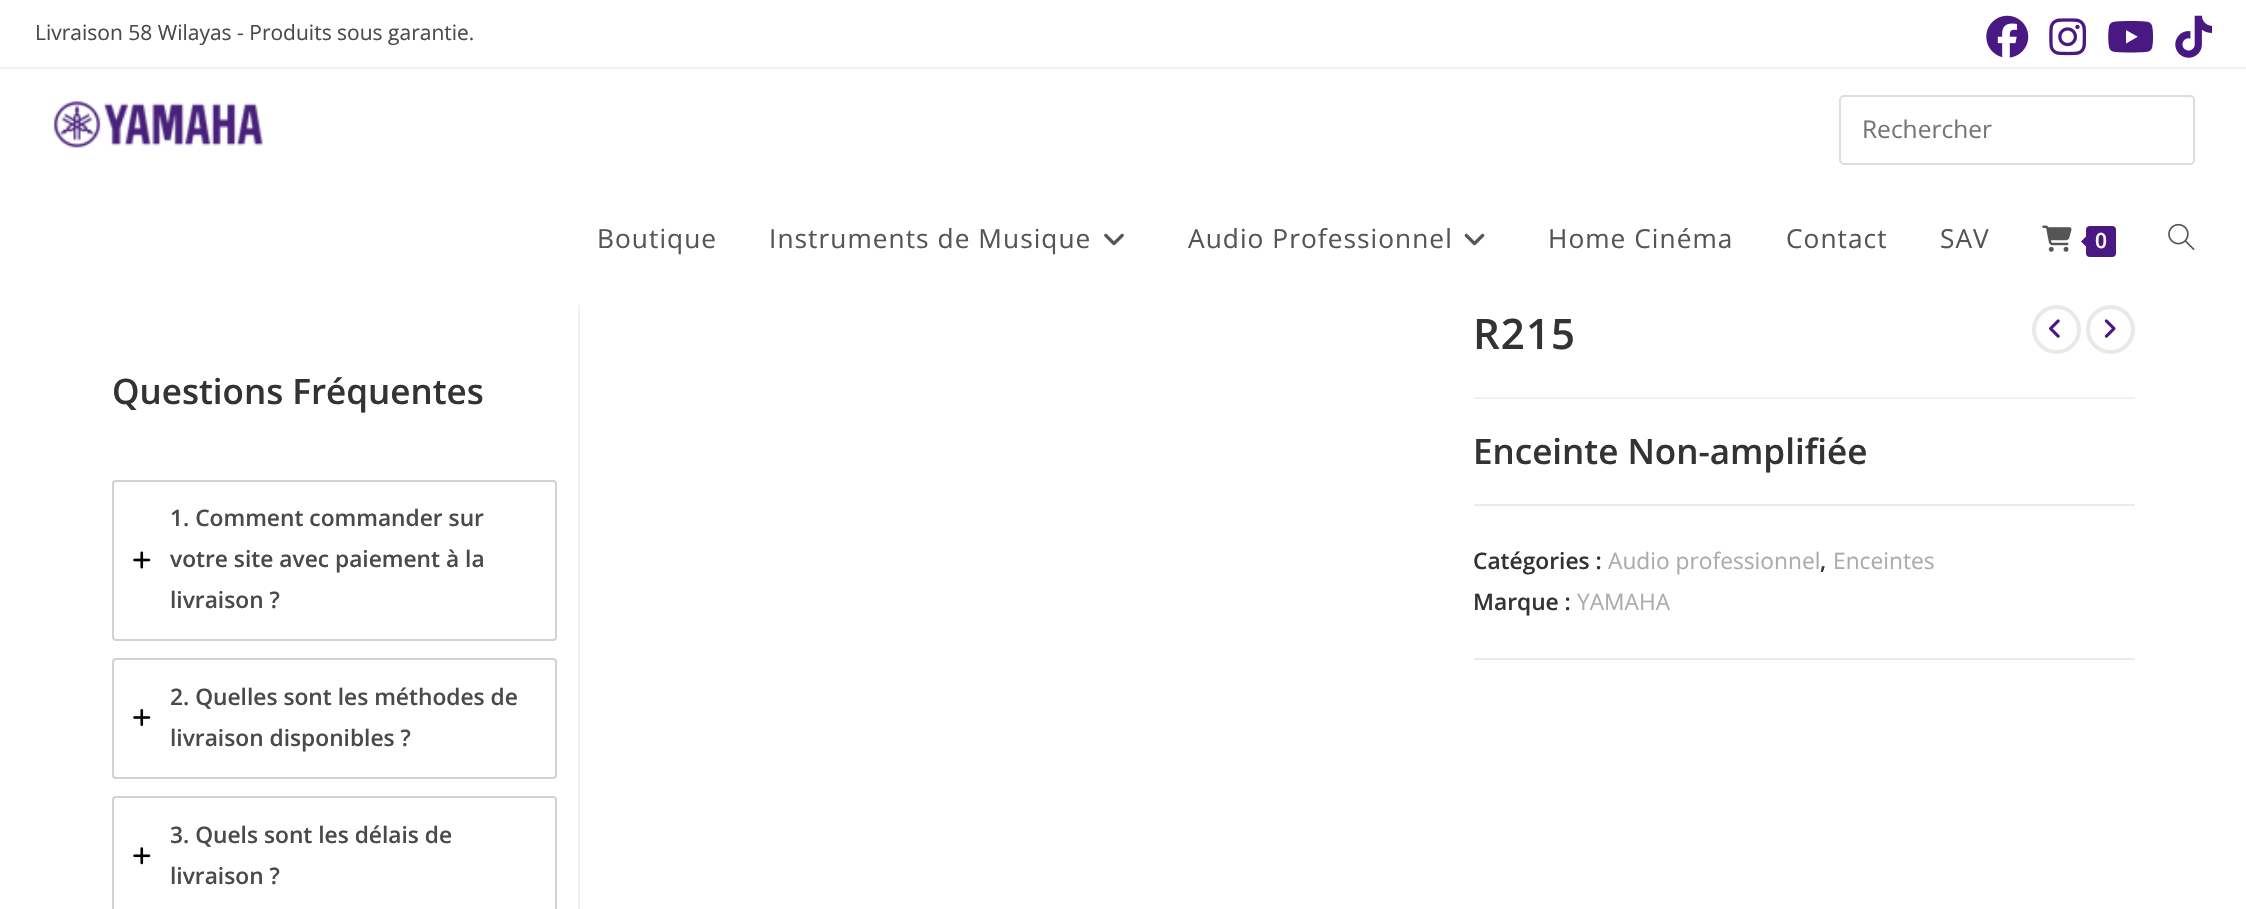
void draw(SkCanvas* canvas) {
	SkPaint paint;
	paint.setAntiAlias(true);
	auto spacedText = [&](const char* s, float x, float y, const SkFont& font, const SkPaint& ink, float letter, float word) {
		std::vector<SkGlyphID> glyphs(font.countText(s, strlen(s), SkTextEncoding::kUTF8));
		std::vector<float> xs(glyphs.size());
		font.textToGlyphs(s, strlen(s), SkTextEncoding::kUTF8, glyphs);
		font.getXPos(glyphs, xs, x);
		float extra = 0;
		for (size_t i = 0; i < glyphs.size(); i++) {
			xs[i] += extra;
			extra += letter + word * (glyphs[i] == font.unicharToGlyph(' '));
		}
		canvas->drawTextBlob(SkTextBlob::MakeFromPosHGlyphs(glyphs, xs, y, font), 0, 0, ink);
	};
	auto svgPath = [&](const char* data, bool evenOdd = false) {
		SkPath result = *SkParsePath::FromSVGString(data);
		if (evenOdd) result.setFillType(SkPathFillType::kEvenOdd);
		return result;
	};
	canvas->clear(0xffffffff);
	paint.setColor(0xfff1f1f1);
	canvas->drawRect(SkRect::MakeXYWH(0, 67, 2246, 2), paint);
	SkFont f1(fontMgr->matchFamilyStyle("Open Sans", SkFontStyle::Normal()), 21);
	f1.setSubpixel(true);
	paint.setColor(0xff4a4a4a);
	canvas->drawString("Livraison 58 Wilayas - Produits sous garantie.", 35, 40, f1, paint);
	canvas->drawImageRect(SkImages::DeferredFromEncodedData(SkData::MakeFromFileName("img1.png")), SkRect::MakeXYWH(1986, 15, 43, 43), SkSamplingOptions());
	canvas->drawImageRect(SkImages::DeferredFromEncodedData(SkData::MakeFromFileName("img2.png")), SkRect::MakeXYWH(2049, 18, 37, 38), SkSamplingOptions());
	canvas->drawImageRect(SkImages::DeferredFromEncodedData(SkData::MakeFromFileName("img3.png")), SkRect::MakeXYWH(2108, 21, 45, 32), SkSamplingOptions());
	canvas->drawImageRect(SkImages::DeferredFromEncodedData(SkData::MakeFromFileName("img4.png")), SkRect::MakeXYWH(2175, 15, 37, 43), SkSamplingOptions());
	canvas->drawImageRect(SkImages::DeferredFromEncodedData(SkData::MakeFromFileName("img5.png")), SkRect::MakeXYWH(53, 101, 210, 47), SkSamplingOptions());
	paint.setStroke(true);
	paint.setStrokeWidth(2);
	paint.setColor(0xffdddddd);
	canvas->drawRoundRect(SkRect::MakeXYWH(1840, 96, 354, 68), 4, 4, paint);
	SkFont f2(fontMgr->matchFamilyStyle("Open Sans", SkFontStyle::Normal()), 24.5);
	f2.setSubpixel(true);
	paint.setStroke(false);
	paint.setColor(0xff757575);
	canvas->drawString("Rechercher", 1862, 138, f2, paint);
	SkFont f3(fontMgr->matchFamilyStyle("Open Sans", SkFontStyle::Normal()), 26.25);
	f3.setSubpixel(true);
	paint.setColor(0xff555555);
	spacedText("Boutique", 597, 248, f3, paint, 1.05, 0);
	spacedText("Instruments de Musique", 769, 248, f3, paint, 1.05, 0);
	canvas->drawImageRect(SkImages::DeferredFromEncodedData(SkData::MakeFromFileName("img6.png")), SkRect::MakeXYWH(1104, 233, 20, 13), SkSamplingOptions());
	spacedText("Audio Professionnel", 1188, 248, f3, paint, 1.05, 0);
	canvas->drawImageRect(SkImages::DeferredFromEncodedData(SkData::MakeFromFileName("img7.png")), SkRect::MakeXYWH(1464, 233, 21, 13), SkSamplingOptions());
	spacedText("Home Cinéma", 1548, 248, f3, paint, 1.05, 0);
	spacedText("Contact", 1786, 248, f3, paint, 1.05, 0);
	spacedText("SAV", 1940, 248, f3, paint, 1.05, 0);
	canvas->drawImageRect(SkImages::DeferredFromEncodedData(SkData::MakeFromFileName("img8.png")), SkRect::MakeXYWH(2042, 225, 30, 27), SkSamplingOptions());
	paint.setColor(0xff491883);
	canvas->drawRoundRect(SkRect::MakeXYWH(2086, 226, 30, 31), 4, 4, paint);
	canvas->drawPath(svgPath("M2089.5 233V250L2081 241.5Z"), paint);
	SkFont f4(fontMgr->matchFamilyStyle("Open Sans", SkFontStyle(600, SkFontStyle::kNormal_Width, SkFontStyle::kUpright_Slant)), 21);
	f4.setSubpixel(true);
	paint.setColor(0xffffffff);
	canvas->drawString("0", 2095, 248, f4, paint);
	canvas->drawImageRect(SkImages::DeferredFromEncodedData(SkData::MakeFromFileName("img9.png")), SkRect::MakeXYWH(2168, 223, 27, 28), SkSamplingOptions());
	SkFont f5(fontMgr->matchFamilyStyle("Open Sans", SkFontStyle(600, SkFontStyle::kNormal_Width, SkFontStyle::kUpright_Slant)), 35);
	f5.setSubpixel(true);
	paint.setColor(0xff333333);
	canvas->drawString("Questions Fréquentes", 112, 404, f5, paint);
	paint.setStroke(true);
	paint.setColor(0xffd2d2d2);
	canvas->drawRoundRect(SkRect::MakeXYWH(113, 481, 443, 159), 3, 3, paint);
	canvas->drawImageRect(SkImages::DeferredFromEncodedData(SkData::MakeFromFileName("img10.png")), SkRect::MakeXYWH(133, 551, 18, 18), SkSamplingOptions());
	SkFont f6(fontMgr->matchFamilyStyle("Open Sans", SkFontStyle(600, SkFontStyle::kNormal_Width, SkFontStyle::kUpright_Slant)), 22.75);
	f6.setSubpixel(true);
	paint.setStroke(false);
	paint.setColor(0xff4a4a4a);
	canvas->drawString("1. Comment commander sur", 170, 526, f6, paint);
	canvas->drawString("votre site avec paiement à la", 170, 567, f6, paint);
	canvas->drawString("livraison ?", 170, 608, f6, paint);
	paint.setStroke(true);
	paint.setColor(0xffd2d2d2);
	canvas->drawRoundRect(SkRect::MakeXYWH(113, 659, 443, 119), 3, 3, paint);
	canvas->drawImageRect(SkImages::DeferredFromEncodedData(SkData::MakeFromFileName("img11.png")), SkRect::MakeXYWH(133, 709, 18, 17), SkSamplingOptions());
	paint.setStroke(false);
	paint.setColor(0xff4a4a4a);
	canvas->drawString("2. Quelles sont les méthodes de", 170, 705, f6, paint);
	canvas->drawString("livraison disponibles ?", 170, 746, f6, paint);
	paint.setStroke(true);
	paint.setColor(0xffd2d2d2);
	canvas->drawRoundRect(SkRect::MakeXYWH(113, 797, 443, 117), 3, 3, paint);
	canvas->drawImageRect(SkImages::DeferredFromEncodedData(SkData::MakeFromFileName("img12.png")), SkRect::MakeXYWH(133, 847, 18, 18), SkSamplingOptions());
	paint.setStroke(false);
	paint.setColor(0xff4a4a4a);
	canvas->drawString("3. Quels sont les délais de", 170, 843, f6, paint);
	canvas->drawString("livraison ?", 170, 884, f6, paint);
	paint.setColor(0xfff1f1f1);
	canvas->drawRect(SkRect::MakeXYWH(578, 305, 2, 604), paint);
	canvas->drawRect(SkRect::MakeXYWH(1474, 397, 661, 2), paint);
	SkFont f7(fontMgr->matchFamilyStyle("Open Sans", SkFontStyle(600, SkFontStyle::kNormal_Width, SkFontStyle::kUpright_Slant)), 42);
	f7.setSubpixel(true);
	paint.setColor(0xff333333);
	spacedText("R215", 1473, 349, f7, paint, 1.05, 0);
	canvas->drawString("Enceinte Non-amplifiée", 1473, 464, f5, paint);
	paint.setColor(0xffeaeaea);
	canvas->drawRect(SkRect::MakeXYWH(1474, 504, 661, 2), paint);
	canvas->drawRect(SkRect::MakeXYWH(1474, 658, 661, 2), paint);
	paint.setColor(0xff333333);
	canvas->drawString("Catégories :", 1473, 569, f6, paint);
	SkFont f8(fontMgr->matchFamilyStyle("Open Sans", SkFontStyle::Normal()), 22.75);
	f8.setSubpixel(true);
	paint.setColor(0xffababab);
	canvas->drawString("Audio professionnel", 1608, 569, f8, paint);
	paint.setColor(0xff333333);
	canvas->drawString(",", 1820, 569, f6, paint);
	paint.setColor(0xffababab);
	canvas->drawString("Enceintes", 1833, 569, f8, paint);
	paint.setColor(0xff333333);
	canvas->drawString("Marque :", 1473, 610, f6, paint);
	paint.setColor(0xffababab);
	canvas->drawString("YAMAHA", 1577, 610, f8, paint);
	paint.setStroke(true);
	paint.setStrokeWidth(4);
	paint.setColor(0xffe9e9e9);
	canvas->drawCircle(2056.5, 329.5, 22.5, paint);
	canvas->drawImageRect(SkImages::DeferredFromEncodedData(SkData::MakeFromFileName("img13.png")), SkRect::MakeXYWH(2049, 319, 11, 19), SkSamplingOptions());
	canvas->drawCircle(2110.5, 329.5, 22.5, paint);
	canvas->drawImageRect(SkImages::DeferredFromEncodedData(SkData::MakeFromFileName("img14.png")), SkRect::MakeXYWH(2104, 319, 12, 19), SkSamplingOptions());
}
